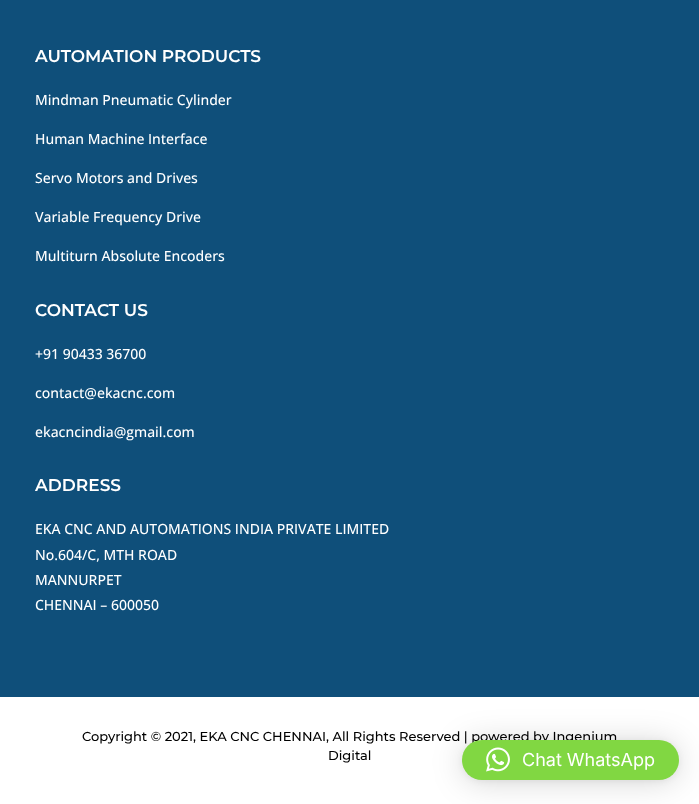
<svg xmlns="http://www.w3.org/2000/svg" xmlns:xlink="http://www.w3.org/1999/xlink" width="699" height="804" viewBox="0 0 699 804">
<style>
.cls-1{font:100 17px Montserrat;fill:#ffffff}
.cls-2{font:500 14px Open Sans;fill:#ffffff}
.cls-3{font:100 13px 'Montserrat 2';fill:#000000}
.cls-4{font:18px Inter;fill:#ffffff}
</style>
<rect width="100%" height="100%" fill="#ffffff"/>
<rect fill="#0f4f7a" x="0" y="0" width="699" height="697"/>
<rect fill="#000000" fill-opacity="0.16" filter="blur(16px)" x="462" y="742" width="217" height="40" rx="20"/>
<rect fill="#000000" fill-opacity="0.06" filter="blur(3px)" x="462" y="741" width="217" height="40" rx="20"/>
<text class="cls-1" x="35" y="62">AUTOMATION PRODUCTS</text>
<text class="cls-2" x="35" y="105">Mindman Pneumatic Cylinder</text>
<text class="cls-2" x="35" y="144">Human Machine Interface</text>
<text class="cls-2" x="35" y="183">Servo Motors and Drives</text>
<text class="cls-2" x="35" y="222">Variable Frequency Drive</text>
<text class="cls-2" x="35" y="261">Multiturn Absolute Encoders</text>
<text class="cls-1" x="35" y="316">CONTACT US</text>
<text class="cls-2" x="35" y="359">+91 90433 36700</text>
<text class="cls-2" x="35" y="398">contact@ekacnc.com</text>
<text class="cls-2" x="35" y="437">ekacncindia@gmail.com</text>
<text class="cls-1" x="35" y="491">ADDRESS</text>
<text class="cls-2"><tspan x="35" y="534">EKA CNC AND AUTOMATIONS INDIA PRIVATE LIMITED</tspan><tspan x="35" y="560">No.604/C, MTH ROAD</tspan><tspan x="35" y="585">MANNURPET</tspan><tspan x="35" y="610">CHENNAI – 600050</tspan></text>
<text class="cls-3" x="82" y="741">Copyright © 2021, EKA CNC CHENNAI, All Rights Reserved | powered by Ingenium</text>
<text class="cls-3" x="328" y="760">Digital</text>
<rect fill="#81d742" x="462" y="740" width="217" height="40" rx="20"/>
<image xlink:href="image0.png" x="486" y="747" width="24" height="25"/>
<text class="cls-4" x="522" y="766">Chat WhatsApp</text>
</svg>
